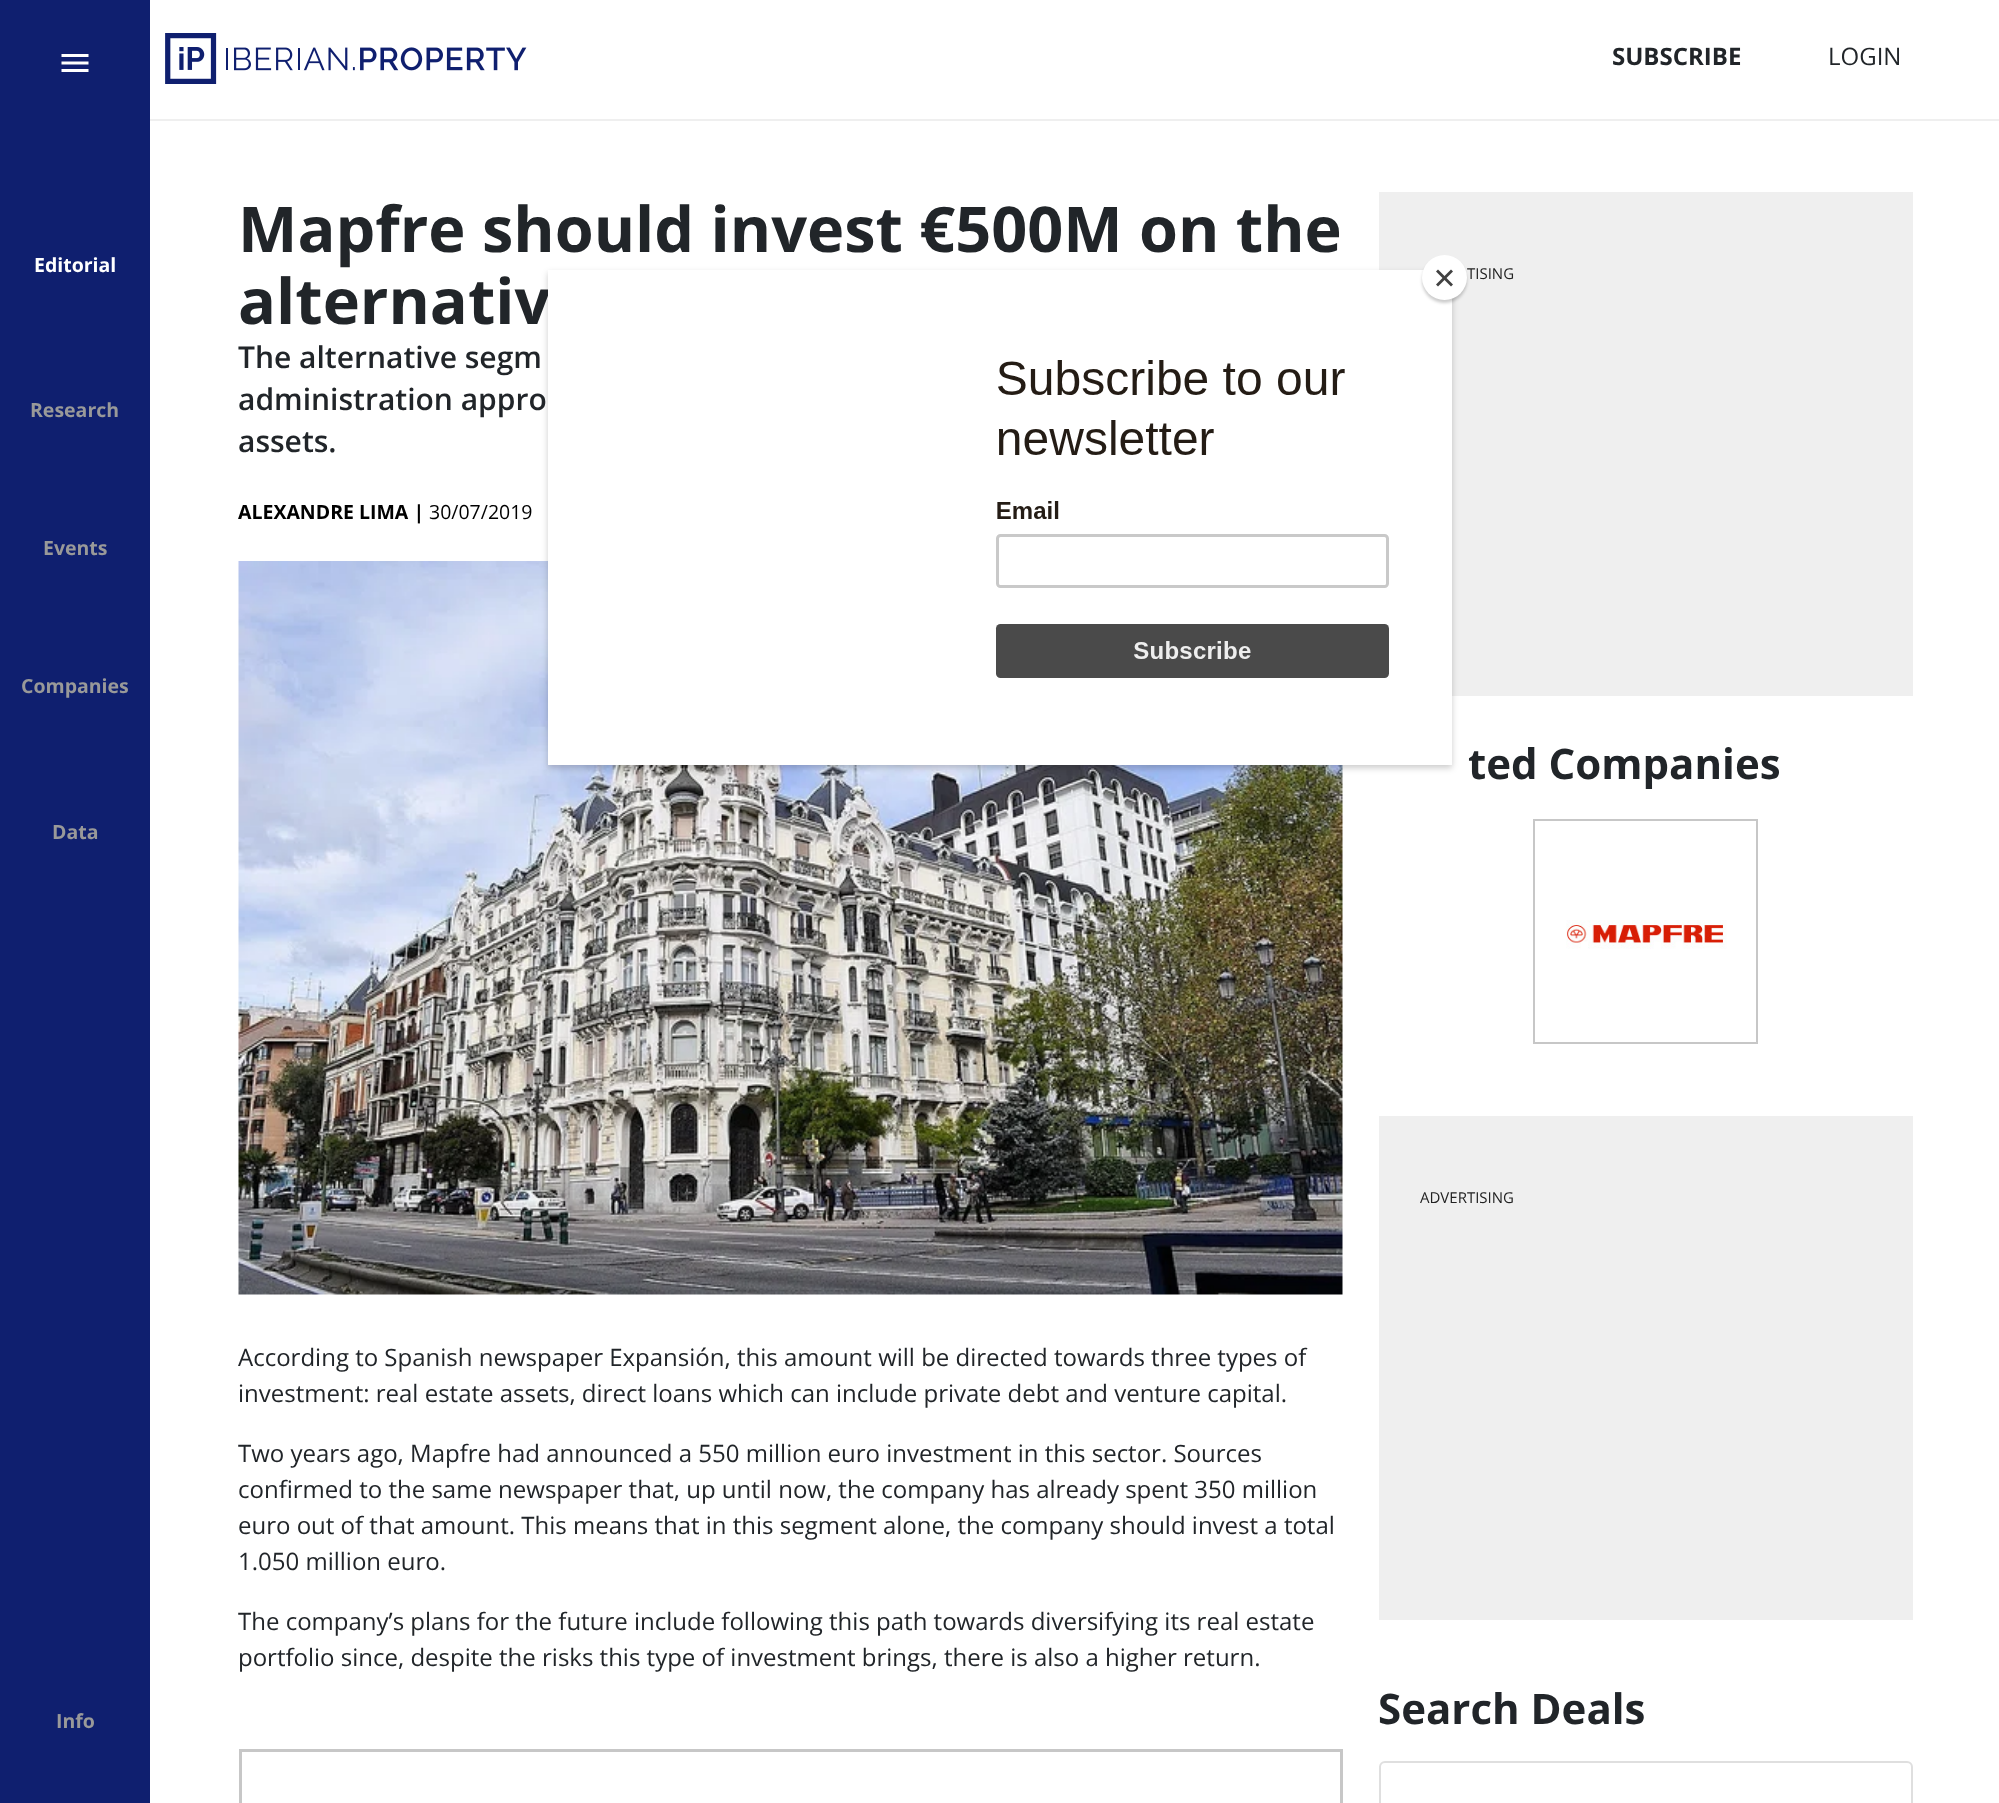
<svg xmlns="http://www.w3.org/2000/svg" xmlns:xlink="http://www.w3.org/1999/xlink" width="1999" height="1803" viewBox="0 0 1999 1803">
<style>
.cls-1{font:bold 19.5px Open Sans;fill:#ffffff}
.cls-2{font:bold 19.5px Open Sans;fill:#999999}
.cls-3{font:bold 24px Open Sans;fill:#212529}
.cls-4{font:24px Open Sans;fill:#212529}
.cls-5{font:bold 63px Open Sans;fill:#212529}
.cls-6{font:600 30px Open Sans;fill:#212529}
.cls-7{font:bold 19.5px Open Sans;fill:#000000}
.cls-8{font:19.5px Open Sans;fill:#000000}
.cls-9{font:15px Open Sans;fill:#222222}
.cls-10{font:bold 42px Open Sans;fill:#212529}
</style>
<rect width="100%" height="100%" fill="#ffffff"/>
<rect fill="#0f1f6f" x="0" y="0" width="150" height="1803"/>
<image xlink:href="image0.png" x="61" y="54" width="28" height="18"/>
<rect fill="#efefef" x="150" y="119" width="1849" height="2"/>
<image xlink:href="image1.png" x="165" y="33" width="362" height="51"/>
<image xlink:href="image2.png" x="238" y="561" width="1105" height="734"/>
<rect fill="none" stroke="#c7c7c7" stroke-width="3" x="240.5" y="1750.5" width="1101" height="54"/>
<rect fill="#efefef" x="1379" y="192" width="534" height="504"/>
<rect fill="none" stroke="#c7c7c7" stroke-width="2" x="1534" y="820" width="223" height="223"/>
<image xlink:href="image3.png" x="1566" y="920" width="161" height="29"/>
<rect fill="#efefef" x="1379" y="1116" width="534" height="504"/>
<rect fill="none" stroke="#dfdfdf" stroke-width="2" x="1380" y="1762" width="532" height="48" rx="5"/>
<rect fill="#000000" fill-opacity="0.2" filter="blur(3px)" x="548" y="273" width="904" height="495"/>
<text class="cls-1" x="34" y="272">Editorial</text>
<text class="cls-2" x="30" y="417">Research</text>
<text class="cls-2" x="43" y="555">Events</text>
<text class="cls-2" x="21" y="693">Companies</text>
<text class="cls-2" x="52" y="839">Data</text>
<text class="cls-2" x="56" y="1728">Info</text>
<text class="cls-3" x="1612" y="65">SUBSCRIBE</text>
<text class="cls-4" x="1828" y="65">LOGIN</text>
<text class="cls-5"><tspan x="238" y="252">Mapfre should invest €500M on the</tspan><tspan x="238" y="324">alternativ</tspan></text>
<text class="cls-6"><tspan x="238" y="368">The alternative segm</tspan><tspan x="238" y="410">administration appro</tspan><tspan x="238" y="452">assets.</tspan></text>
<text class="cls-7" x="238" y="519">ALEXANDRE LIMA |</text>
<text class="cls-8" x="429" y="519">30/07/2019</text>
<text class="cls-4"><tspan x="238" y="1366">According to Spanish newspaper Expansión, this amount will be directed towards three types of</tspan><tspan x="238" y="1402">investment: real estate assets, direct loans which can include private debt and venture capital.</tspan></text>
<text class="cls-4"><tspan x="238" y="1462">Two years ago, Mapfre had announced a 550 million euro investment in this sector. Sources</tspan><tspan x="238" y="1498">confirmed to the same newspaper that, up until now, the company has already spent 350 million</tspan><tspan x="238" y="1534">euro out of that amount. This means that in this segment alone, the company should invest a total</tspan><tspan x="238" y="1570">1.050 million euro.</tspan></text>
<text class="cls-4"><tspan x="238" y="1630">The company’s plans for the future include following this path towards diversifying its real estate</tspan><tspan x="238" y="1666">portfolio since, despite the risks this type of investment brings, there is also a higher return.</tspan></text>
<text class="cls-9" x="1467" y="279">TISING</text>
<text class="cls-10" x="1468" y="779">ted Companies</text>
<text class="cls-9" x="1420" y="1203">ADVERTISING</text>
<text class="cls-10" x="1378" y="1724">Search Deals</text>
<image xlink:href="image4.png" x="548" y="270" width="904" height="495"/>
<rect fill="#000000" fill-opacity="0.2" filter="blur(1.5px)" x="1422" y="258" width="45" height="45" rx="22.5"/>
<circle fill="#ffffff" cx="1444.5" cy="277.5" r="22.5"/>
<path fill="#414141" d="M1451 269.5L1453 271.5L1438 286.5L1436 284.5Z"/>
<path fill="#414141" d="M1436 271.5L1438 269.5L1453 284.5L1451 286.5Z"/>
</svg>
